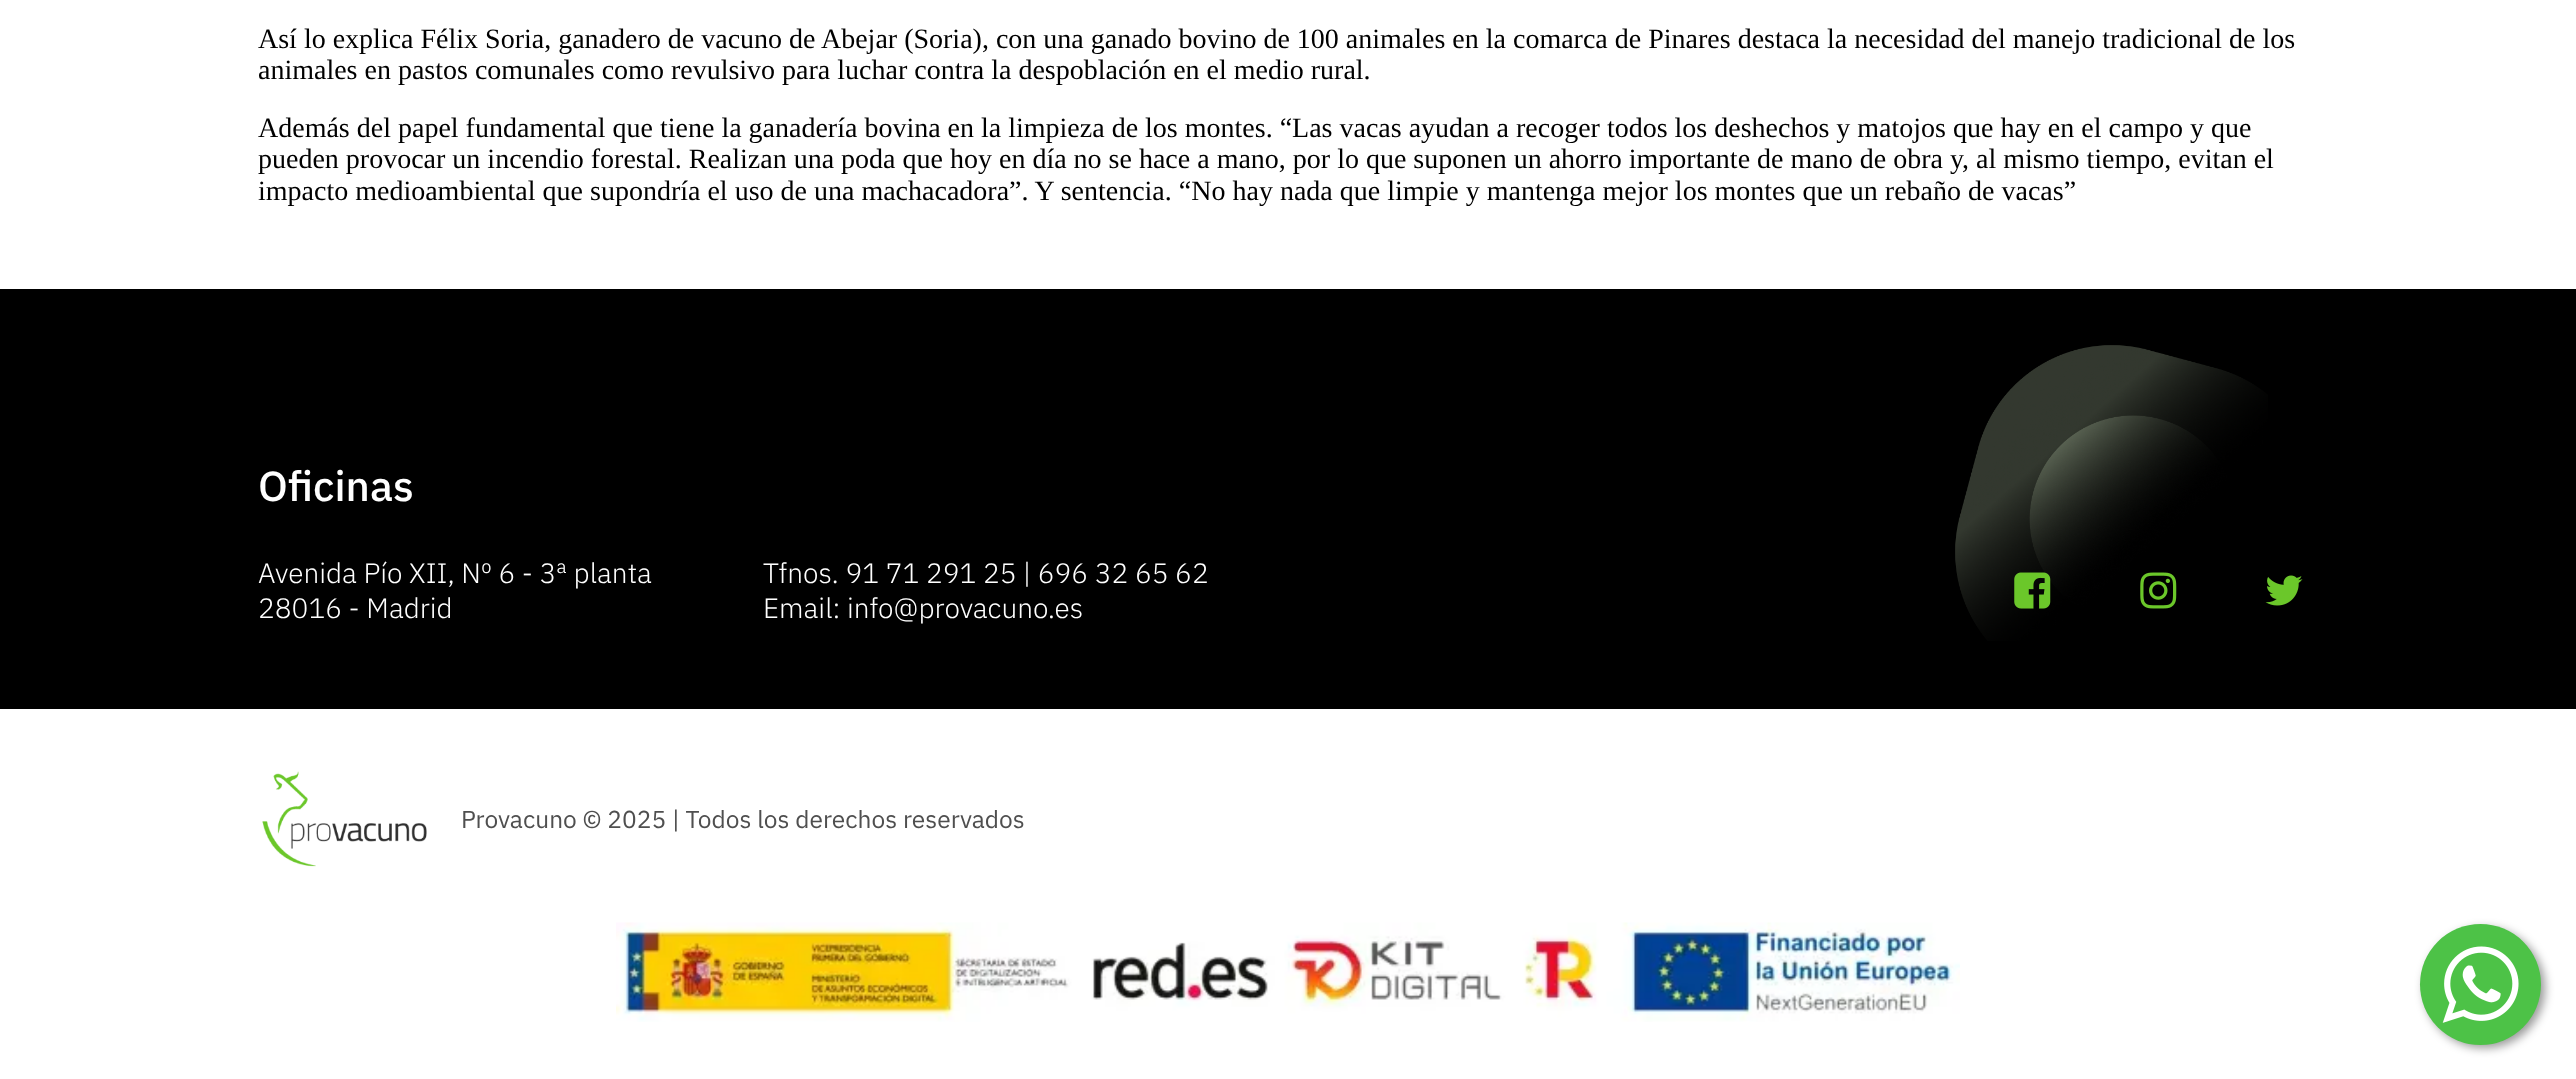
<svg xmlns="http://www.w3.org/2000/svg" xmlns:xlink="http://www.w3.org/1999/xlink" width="2576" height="1079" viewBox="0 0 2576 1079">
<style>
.cls-1{font:28px Liberation Serif;fill:#000000}
.cls-2{font:500 42px IBM Plex Sans;fill:#ffffff}
.cls-3{font:300 28px IBM Plex Sans;fill:#ffffff}
.cls-4{font:24.5px IBM Plex Sans;fill:#4f4f4f}
</style>
<rect width="100%" height="100%" fill="#ffffff"/>
<rect fill="#000000" x="0" y="289" width="2576" height="420"/>
<image xlink:href="image0.png" x="1955" y="345" width="313" height="296"/>
<image xlink:href="image1.png" x="2014" y="572" width="37" height="37"/>
<image xlink:href="image2.png" x="2140" y="572" width="37" height="37"/>
<image xlink:href="image3.png" x="2265" y="575" width="38" height="31"/>
<image xlink:href="image4.png" x="262" y="771" width="165" height="96"/>
<image xlink:href="image5.png" x="616" y="922" width="1344" height="100"/>
<rect fill="#000000" fill-opacity="0.4" filter="blur(5px)" x="2424" y="928" width="121" height="120" rx="60"/>
<circle fill="#4dc247" cx="2480.5" cy="984.5" r="60.5"/>
<image xlink:href="image6.png" x="2442" y="946" width="77" height="77"/>
<text class="cls-1"><tspan x="258" y="48">Así lo explica Félix Soria, ganadero de vacuno de Abejar (Soria), con una ganado bovino de 100 animales en la comarca de Pinares destaca la necesidad del manejo tradicional de los</tspan><tspan x="258" y="79">animales en pastos comunales como revulsivo para luchar contra la despoblación en el medio rural.</tspan></text>
<text class="cls-1"><tspan x="258" y="137">Además del papel fundamental que tiene la ganadería bovina en la limpieza de los montes. “Las vacas ayudan a recoger todos los deshechos y matojos que hay en el campo y que</tspan><tspan x="258" y="168">pueden provocar un incendio forestal. Realizan una poda que hoy en día no se hace a mano, por lo que suponen un ahorro importante de mano de obra y, al mismo tiempo, evitan el</tspan><tspan x="258" y="200">impacto medioambiental que supondría el uso de una machacadora”. Y sentencia. “No hay nada que limpie y mantenga mejor los montes que un rebaño de vacas”</tspan></text>
<text class="cls-2" x="258" y="501">Oficinas</text>
<text class="cls-3"><tspan x="258" y="583">Avenida Pío XII, Nº 6 - 3ª planta</tspan><tspan x="258" y="618">28016 - Madrid</tspan></text>
<text class="cls-3"><tspan x="763" y="583">Tfnos. 91 71 291 25 | 696 32 65 62</tspan><tspan x="763" y="618">Email: info@provacuno.es</tspan></text>
<text class="cls-4" x="461" y="828">Provacuno © 2025 | Todos los derechos reservados</text>
</svg>
